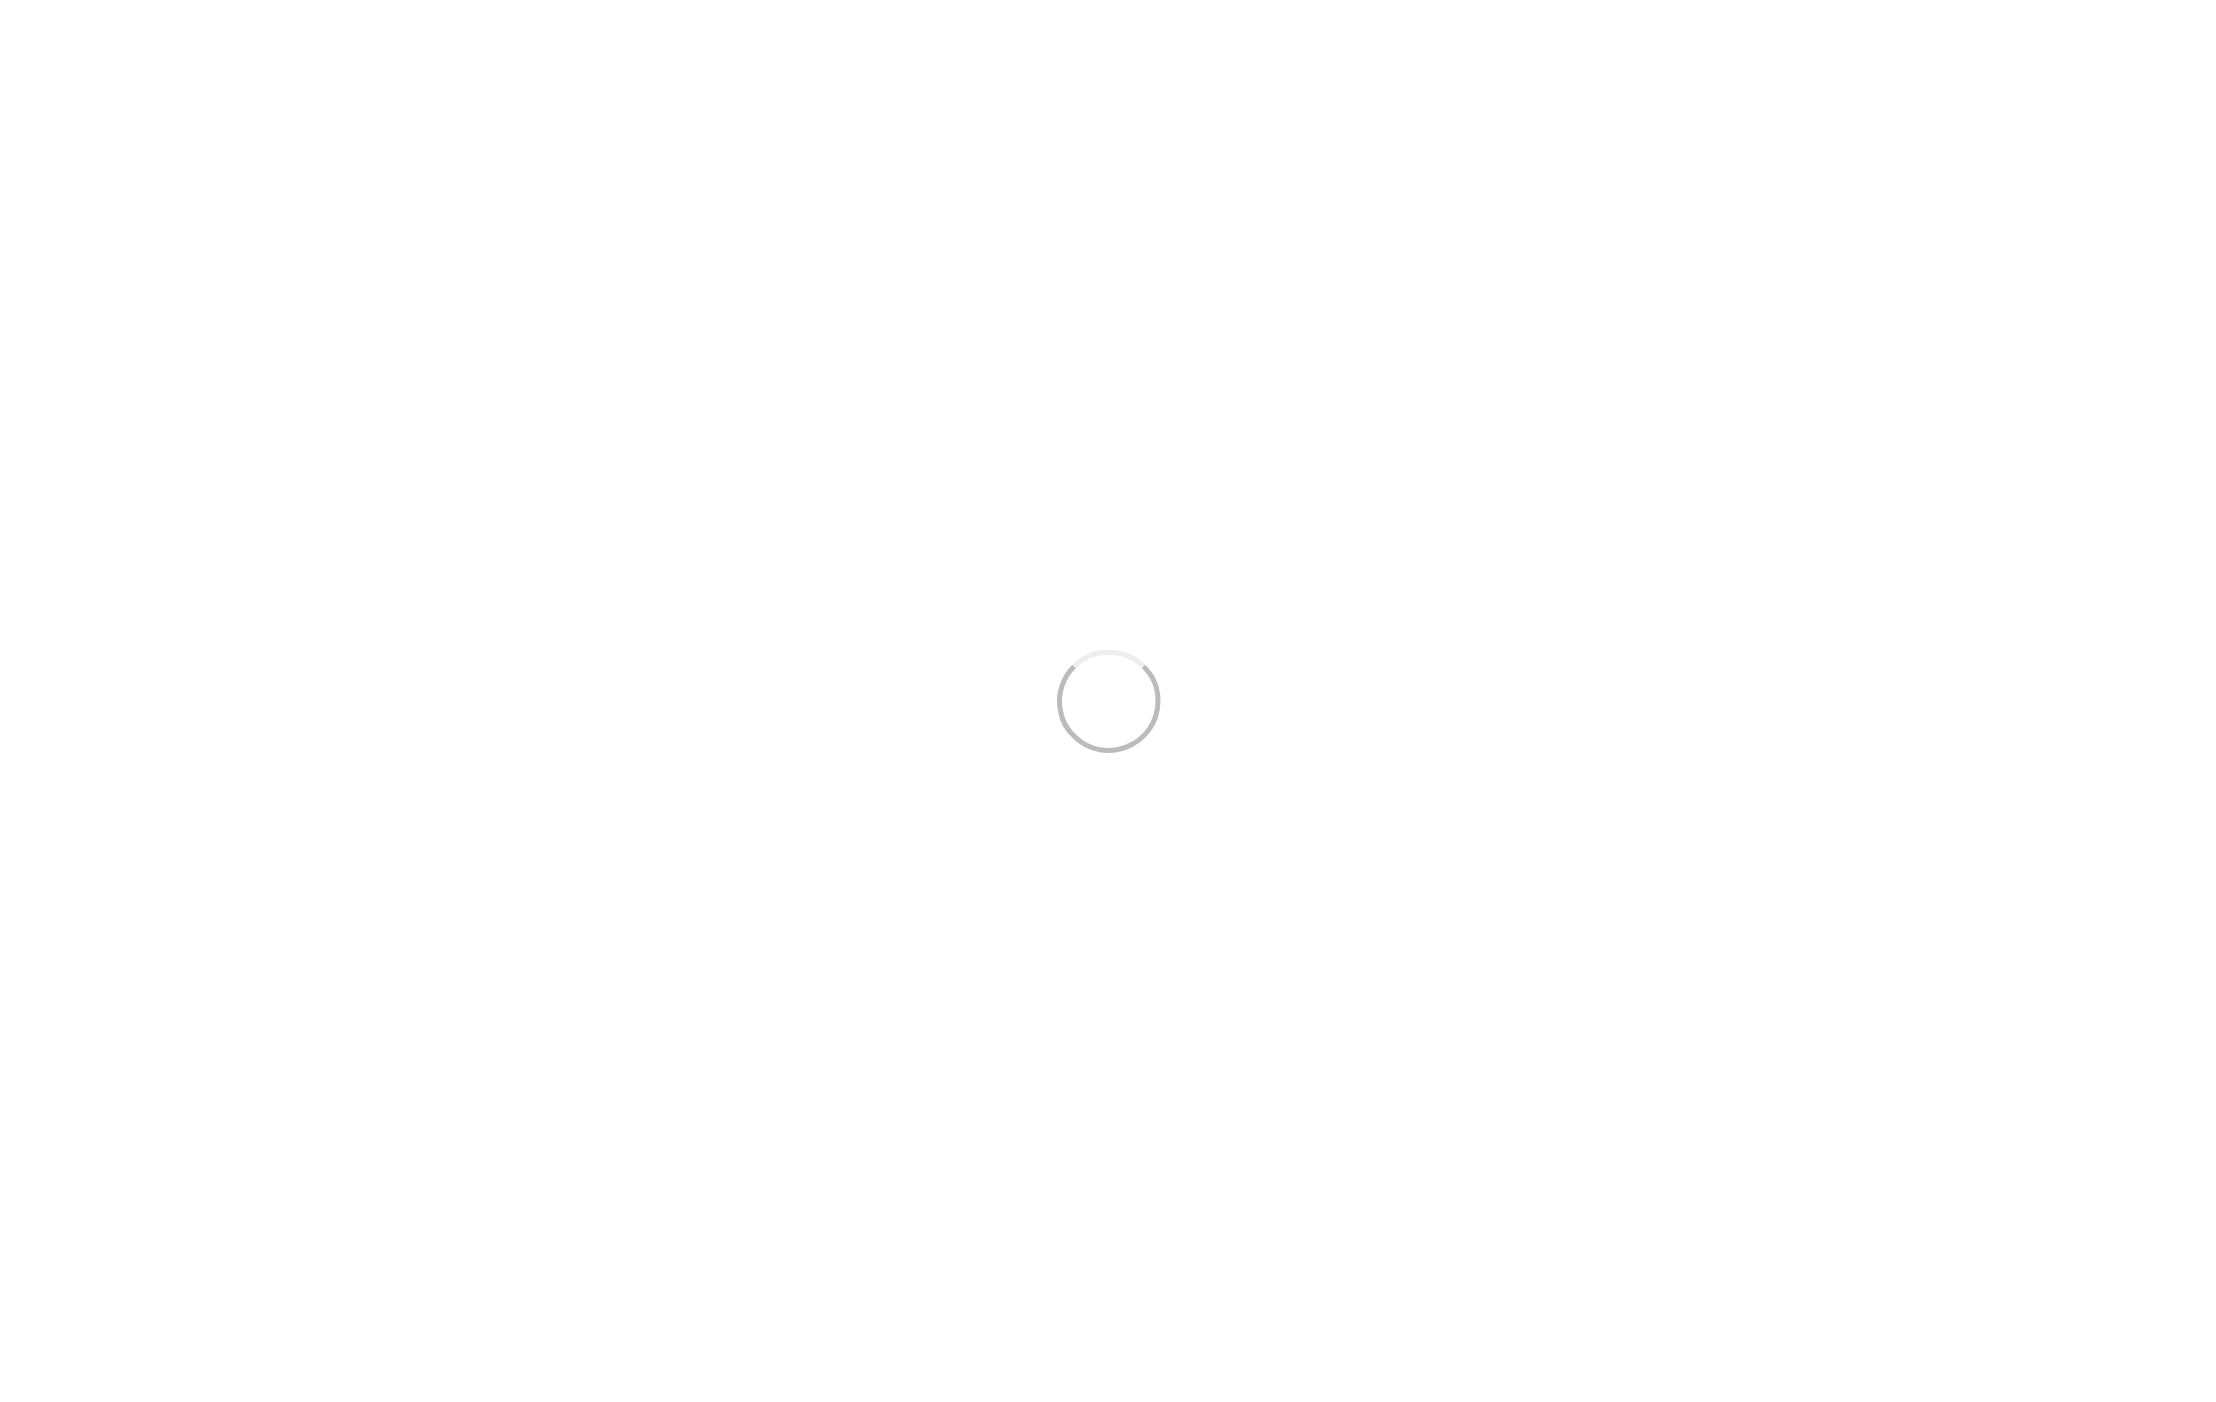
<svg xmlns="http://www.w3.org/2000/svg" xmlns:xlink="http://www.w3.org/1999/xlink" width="2216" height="1402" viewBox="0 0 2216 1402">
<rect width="100%" height="100%" fill="#ffffff"/>
<path fill="none" stroke="#eeeeee" stroke-width="5" d="M1074 666.5C1093 647.5 1124.5 647.5 1143.5 666.5"/>
<path fill="none" stroke="#bbbbbb" stroke-width="5" d="M1143.5 666.5C1153 675.5 1158 688 1158 701C1158 745 1104.5 767 1074 736C1067 729.5 1062 720.5 1060.5 711C1057 695 1062.5 678 1074 666.5"/>
</svg>
